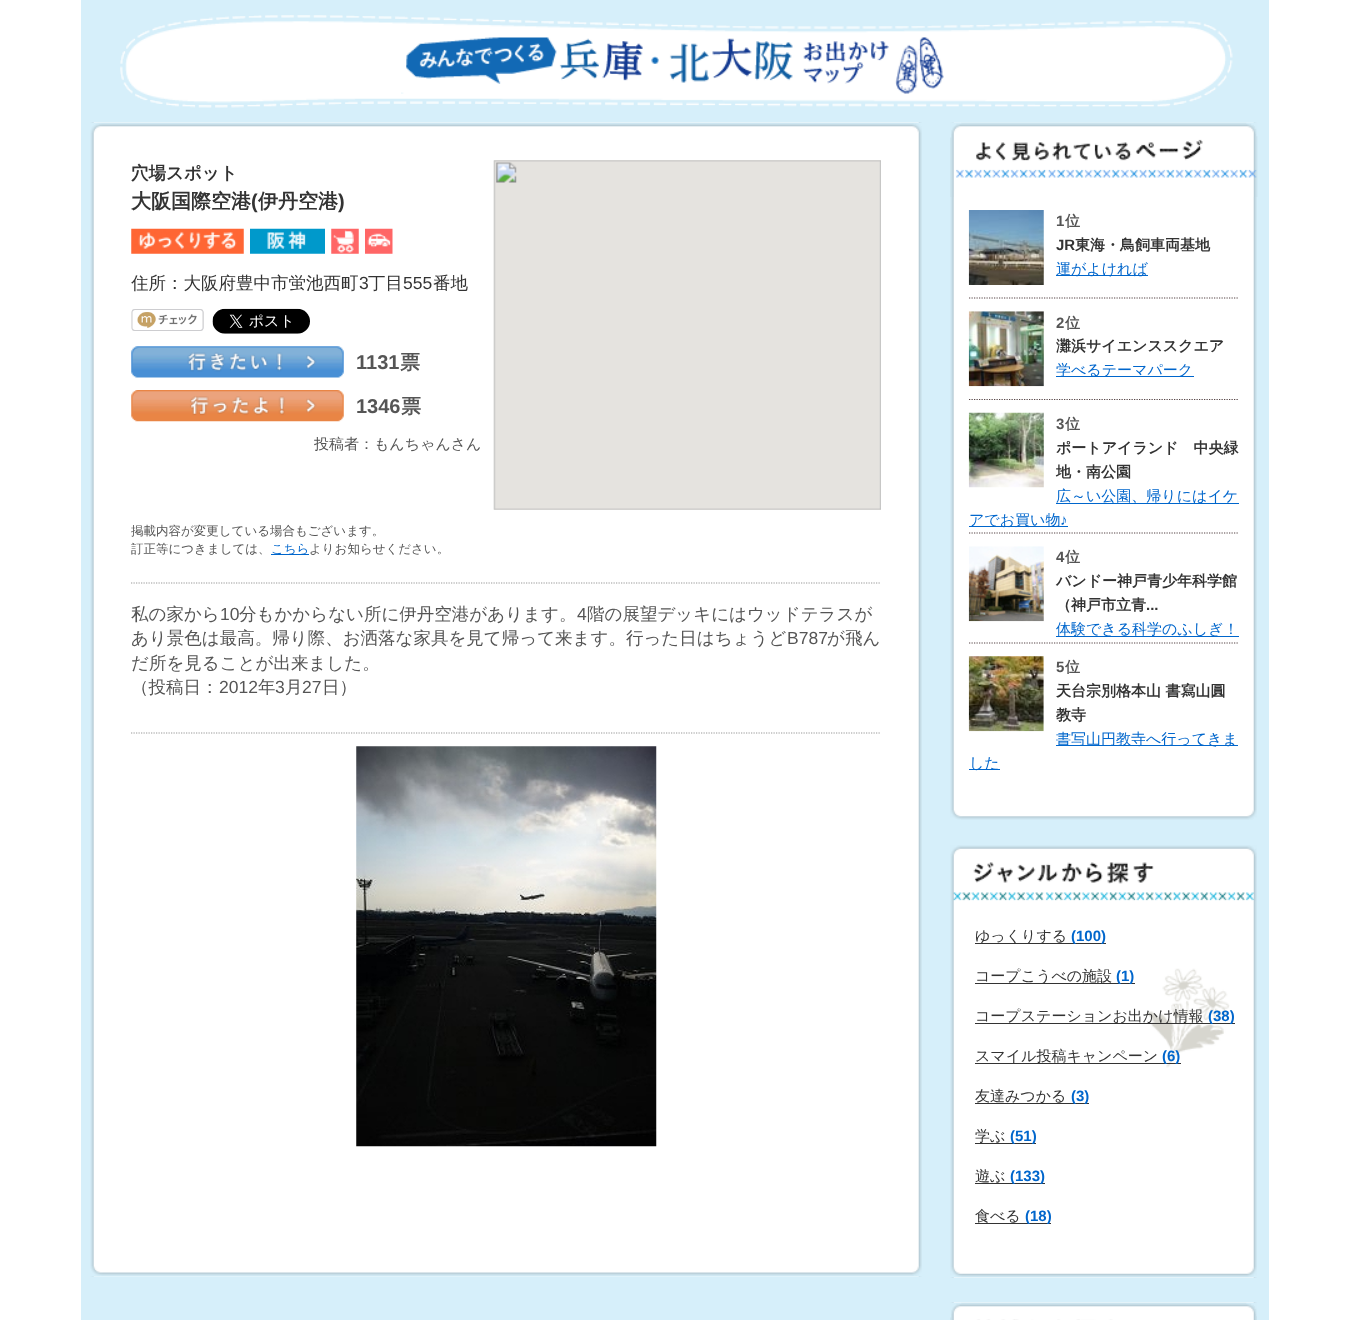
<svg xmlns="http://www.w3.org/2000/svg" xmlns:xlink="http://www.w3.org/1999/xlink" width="1349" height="1320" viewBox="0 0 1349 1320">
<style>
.cls-1{font:bold 17.5px WenQuanYi Zen Hei;fill:#333333}
.cls-2{font:bold 20px WenQuanYi Zen Hei;fill:#333333}
.cls-3{font:bold 20px Liberation Sans;fill:#333333}
.cls-4{font:500 17.5px WenQuanYi Zen Hei;fill:#333333}
.cls-5{font:17.5px Liberation Sans;fill:#333333}
.cls-6{font:bold 20px Liberation Sans;fill:#555555}
.cls-7{font:bold 20px WenQuanYi Zen Hei;fill:#555555}
.cls-8{font:500 15px WenQuanYi Zen Hei;fill:#555555}
.cls-9{font:500 12.5px WenQuanYi Zen Hei;fill:#555555}
.cls-10{font:500 12.5px WenQuanYi Zen Hei;fill:#0066cc}
.cls-11{font:500 17.5px WenQuanYi Zen Hei;fill:#555555}
.cls-12{font:17.5px Liberation Sans;fill:#555555}
.cls-13{font:bold 15px Liberation Sans;fill:#555555}
.cls-14{font:bold 15px WenQuanYi Zen Hei;fill:#555555}
.cls-15{font:bold 15px Liberation Sans;fill:#333333}
.cls-16{font:bold 15px WenQuanYi Zen Hei;fill:#333333}
.cls-17{font:500 15px WenQuanYi Zen Hei;fill:#0066cc}
.cls-18{font:15px Liberation Sans;fill:#0066cc}
.cls-19{font:500 15px WenQuanYi Zen Hei;fill:#333333}
.cls-20{font:bold 15px Liberation Sans;fill:#0066cc}
</style>
<rect width="100%" height="100%" fill="#ffffff"/>
<rect fill="#d6effa" x="81" y="0" width="1188" height="1320"/>
<image xlink:href="image0.png" x="120" y="15" width="1113" height="93"/>
<image xlink:href="image1.png" x="401" y="37" width="543" height="57"/>
<image xlink:href="image2.png" x="90" y="122" width="832" height="1155"/>
<image xlink:href="image3.png" x="90" y="1266" width="832" height="10"/>
<image xlink:href="image4.png" x="90" y="122" width="832" height="11"/>
<image xlink:href="image5.png" x="131" y="228" width="113" height="26"/>
<image xlink:href="image6.png" x="250" y="228" width="75" height="26"/>
<image xlink:href="image7.png" x="331" y="228" width="28" height="26"/>
<image xlink:href="image8.png" x="365" y="228" width="28" height="26"/>
<image xlink:href="image9.png" x="131" y="309" width="73" height="22"/>
<image xlink:href="image10.png" x="212" y="308" width="98" height="26"/>
<image xlink:href="image11.png" x="131" y="346" width="213" height="32"/>
<image xlink:href="image12.png" x="131" y="390" width="213" height="32"/>
<image xlink:href="image13.png" x="493" y="160" width="388" height="350"/>
<rect fill="#0066cc" x="271" y="554" width="38" height="1"/>
<path fill="none" stroke="#999999" stroke-width="1.2" stroke-dasharray="1.25 1.25" d="M131 583H881"/>
<path fill="none" stroke="#999999" stroke-width="1.2" stroke-dasharray="1.25 1.25" d="M131 733H881"/>
<image xlink:href="image14.png" x="356" y="746" width="301" height="401"/>
<image xlink:href="image15.png" x="950" y="122" width="307" height="688"/>
<image xlink:href="image16.png" x="950" y="122" width="308" height="75"/>
<image xlink:href="image17.png" x="968" y="210" width="76" height="75"/>
<rect fill="#0066cc" x="1056" y="275" width="92" height="1"/>
<path fill="none" stroke="#564546" stroke-width="1.2" stroke-dasharray="1.25 1.25" d="M969 298H1239"/>
<image xlink:href="image18.png" x="968" y="311" width="76" height="76"/>
<rect fill="#0066cc" x="1056" y="376" width="138" height="1"/>
<path fill="none" stroke="#564546" stroke-width="1.2" stroke-dasharray="1.25 1.25" d="M969 399.5H1239"/>
<image xlink:href="image19.png" x="968" y="412" width="76" height="76"/>
<rect fill="#0066cc" x="1056" y="503" width="183" height="1"/>
<rect fill="#0066cc" x="969" y="526" width="99" height="1"/>
<path fill="none" stroke="#564546" stroke-width="1.2" stroke-dasharray="1.25 1.25" d="M969 533H1239"/>
<image xlink:href="image20.png" x="968" y="546" width="76" height="76"/>
<rect fill="#0066cc" x="1056" y="636" width="183" height="1"/>
<path fill="none" stroke="#564546" stroke-width="1.2" stroke-dasharray="1.25 1.25" d="M969 643H1239"/>
<image xlink:href="image21.png" x="968" y="656" width="76" height="76"/>
<rect fill="#0066cc" x="1056" y="745" width="182" height="1"/>
<rect fill="#0066cc" x="969" y="769" width="31" height="1"/>
<image xlink:href="image22.png" x="950" y="810" width="307" height="10"/>
<image xlink:href="image23.png" x="950" y="901" width="307" height="377"/>
<image xlink:href="image24.png" x="950" y="845" width="307" height="56"/>
<image xlink:href="image25.png" x="1147" y="968" width="83" height="100"/>
<rect fill="#333333" x="975" y="943" width="131" height="1"/>
<rect fill="#333333" x="975" y="983" width="160" height="1"/>
<rect fill="#333333" x="975" y="1023" width="260" height="1"/>
<rect fill="#333333" x="975" y="1063" width="206" height="1"/>
<rect fill="#333333" x="975" y="1103" width="114" height="1"/>
<rect fill="#333333" x="975" y="1143" width="61" height="1"/>
<rect fill="#333333" x="975" y="1183" width="70" height="1"/>
<rect fill="#333333" x="975" y="1223" width="76" height="1"/>
<image xlink:href="image26.png" x="950" y="1267" width="307" height="11"/>
<image xlink:href="image27.png" x="950" y="1302" width="307" height="1"/>
<image xlink:href="image28.png" x="950" y="1302" width="307" height="18"/>
<text class="cls-1" x="131" y="179">穴場スポット</text>
<text class="cls-2" x="131" y="208">大阪国際空港</text>
<text class="cls-3" x="251" y="208">(</text>
<text class="cls-2" x="258" y="208">伊丹空港</text>
<text class="cls-3" x="338" y="208">)</text>
<text class="cls-4" x="131" y="289">住所：大阪府豊中市蛍池西町</text>
<text class="cls-5" x="359" y="289">3</text>
<text class="cls-4" x="368" y="289">丁目</text>
<text class="cls-5" x="403" y="289">555</text>
<text class="cls-4" x="433" y="289">番地</text>
<text class="cls-6" x="356" y="369">1131</text>
<text class="cls-7" x="400" y="369">票</text>
<text class="cls-6" x="356" y="413">1346</text>
<text class="cls-7" x="401" y="413">票</text>
<text class="cls-8" x="314" y="449">投稿者：もんちゃんさん</text>
<text class="cls-9"><tspan x="131" y="535">掲載内容が変更している場合もございます。</tspan><tspan x="131" y="553">訂正等につきましては、</tspan></text>
<text class="cls-10" x="271" y="553">こちら</text>
<text class="cls-9" x="309" y="553">よりお知らせください。</text>
<text class="cls-11" x="131" y="620">私の家から</text>
<text class="cls-12" x="220" y="620">10</text>
<text class="cls-11" x="239" y="620">分もかからない所に伊丹空港があります。</text>
<text class="cls-12" x="577" y="620">4</text>
<text class="cls-11" x="587" y="620">階の展望デッキにはウッドテラスが</text>
<text class="cls-11" x="131" y="644">あり景色は最高。帰り際、お洒落な家具を見て帰って来ます。行った日はちょうど</text>
<text class="cls-12" x="787" y="644">B787</text>
<text class="cls-11" x="827" y="644">が飛ん</text>
<text class="cls-11"><tspan x="131" y="669">だ所を見ることが出来ました。</tspan><tspan x="131" y="693">（投稿日：</tspan></text>
<text class="cls-12" x="219" y="693">2012</text>
<text class="cls-11" x="258" y="693">年</text>
<text class="cls-12" x="275" y="693">3</text>
<text class="cls-11" x="285" y="693">月</text>
<text class="cls-12" x="302" y="693">27</text>
<text class="cls-11" x="322" y="693">日）</text>
<text class="cls-13" x="1056" y="226">1</text>
<text class="cls-14" x="1065" y="226">位</text>
<text class="cls-15" x="1056" y="250">JR</text>
<text class="cls-16" x="1075" y="250">東海・鳥飼車両基地</text>
<text class="cls-17" x="1056" y="274">運がよければ</text>
<text class="cls-13" x="1056" y="328">2</text>
<text class="cls-14" x="1065" y="328">位</text>
<text class="cls-16" x="1056" y="351">灘浜サイエンススクエア</text>
<text class="cls-17" x="1056" y="375">学べるテーマパーク</text>
<text class="cls-13" x="1056" y="429">3</text>
<text class="cls-14" x="1065" y="429">位</text>
<text class="cls-16"><tspan x="1056" y="453">ポートアイランド　中央緑</tspan><tspan x="1056" y="477">地・南公園</tspan></text>
<text class="cls-17" x="1056" y="501">広～い公園、帰りにはイケ</text>
<text class="cls-17" x="969" y="525">アでお買い物</text>
<text class="cls-18" x="1060" y="525">♪</text>
<text class="cls-13" x="1056" y="562">4</text>
<text class="cls-14" x="1065" y="562">位</text>
<text class="cls-16"><tspan x="1056" y="586">バンドー神戸青少年科学館</tspan><tspan x="1056" y="610">（神戸市立青</tspan></text>
<text class="cls-15" x="1146" y="610">...</text>
<text class="cls-17" x="1056" y="634">体験できる科学のふしぎ！</text>
<text class="cls-13" x="1056" y="672">5</text>
<text class="cls-14" x="1065" y="672">位</text>
<text class="cls-16"><tspan x="1056" y="696">天台宗別格本山 書寫山圓</tspan><tspan x="1056" y="720">教寺</tspan></text>
<text class="cls-17" x="1056" y="744">書写山円教寺へ行ってきま</text>
<text class="cls-17" x="969" y="768">した</text>
<text class="cls-19" x="975" y="941">ゆっくりする</text>
<text class="cls-20" x="1071" y="941">(100)</text>
<text class="cls-19" x="975" y="981">コープこうべの施設</text>
<text class="cls-20" x="1116" y="981">(1)</text>
<text class="cls-19" x="975" y="1021">コープステーションお出かけ情報</text>
<text class="cls-20" x="1208" y="1021">(38)</text>
<text class="cls-19" x="975" y="1061">スマイル投稿キャンペーン</text>
<text class="cls-20" x="1162" y="1061">(6)</text>
<text class="cls-19" x="975" y="1101">友達みつかる</text>
<text class="cls-20" x="1071" y="1101">(3)</text>
<text class="cls-19" x="975" y="1141">学ぶ</text>
<text class="cls-20" x="1010" y="1141">(51)</text>
<text class="cls-19" x="975" y="1181">遊ぶ</text>
<text class="cls-20" x="1010" y="1181">(133)</text>
<text class="cls-19" x="975" y="1221">食べる</text>
<text class="cls-20" x="1025" y="1221">(18)</text>
</svg>
